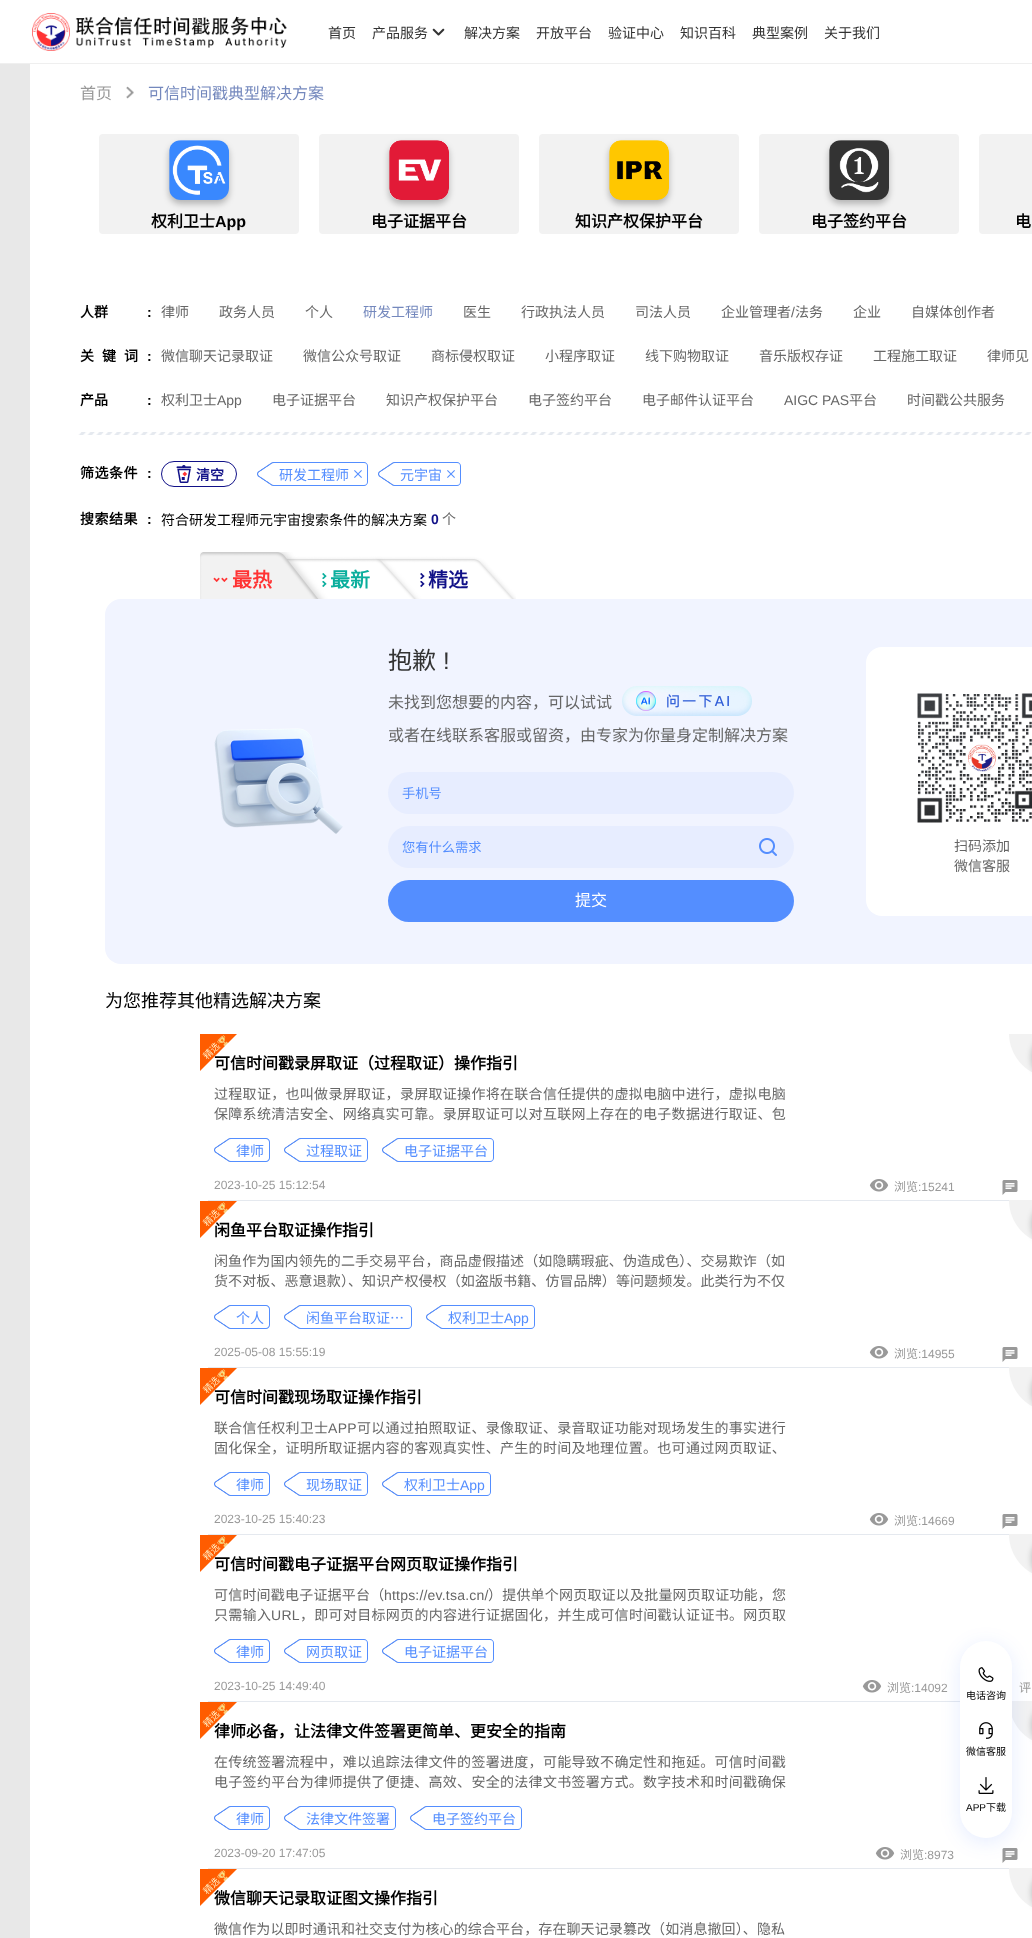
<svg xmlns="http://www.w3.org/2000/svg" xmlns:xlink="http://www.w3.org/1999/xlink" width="1032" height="1938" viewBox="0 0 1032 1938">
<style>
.cls-1{font:14px Noto Sans CJK SC;fill:#333333}
.cls-2{font:16px Noto Sans CJK SC;fill:#999999}
.cls-3{font:16px Noto Sans CJK SC;fill:#7488bd}
.cls-4{font:bold 16px Noto Sans CJK SC;fill:#000000}
.cls-5{font:bold 16px Liberation Sans;fill:#000000}
.cls-6{font:bold 14px Noto Sans CJK SC;fill:#000000}
.cls-7{font:bold 14px Liberation Sans;fill:#000000}
.cls-8{font:14px Noto Sans CJK SC;fill:#666666}
.cls-9{font:14px Noto Sans CJK SC;fill:#7488bd}
.cls-10{font:14px Liberation Sans;fill:#666666}
.cls-11{font:bold 14px Noto Sans CJK SC;letter-spacing:8px;fill:#000000}
.cls-12{font:bold 14px Noto Sans CJK SC;letter-spacing:0.5px;fill:#000000}
.cls-13{font:bold 14px Noto Sans CJK SC;fill:#111188}
.cls-14{font:14px Noto Sans CJK SC;fill:#548eff}
.cls-15{font:14px Noto Sans CJK SC;fill:#000000}
.cls-16{font:bold 14px Liberation Sans;fill:#111188}
.cls-17{font:bold 20px Noto Sans CJK SC;fill:#ff3333}
.cls-18{font:bold 20px Noto Sans CJK SC;fill:#0aae9d}
.cls-19{font:bold 20px Noto Sans CJK SC;fill:#111188}
.cls-20{font:24px Noto Sans CJK SC;fill:#333333}
.cls-21{font:24px Liberation Sans;fill:#333333}
.cls-22{font:16px Noto Sans CJK SC;fill:#666666}
.cls-23{font:13.25px Noto Sans CJK SC;fill:#548eff}
.cls-24{font:16px Noto Sans CJK SC;fill:#ffffff}
.cls-25{font:18px Noto Sans CJK SC;fill:#000000}
.cls-26{font:14px Noto Sans CJK SC;letter-spacing:0.3px;fill:#666666}
.cls-27{font:12px Liberation Sans;fill:#999999}
.cls-28{font:12px Noto Sans CJK SC;fill:#999999}
.cls-29{font:14px Noto Sans CJK SC;letter-spacing:0.1px;fill:#666666}
.cls-30{font:14px Liberation Sans;fill:#548eff}
.cls-31{font:14px Liberation Sans;letter-spacing:0.3px;fill:#666666}
.cls-32{font:14px Noto Sans CJK SC;letter-spacing:0.2px;fill:#666666}
.cls-33{font:14px Liberation Sans;letter-spacing:0.2px;fill:#666666}
.cls-34{font:10px Noto Sans CJK SC;fill:#000000}
.cls-35{font:10px Liberation Sans;fill:#000000}
</style>
<rect width="100%" height="100%" fill="#e8e8e8"/>
<rect fill="#ffffff" x="0" y="0" width="1032" height="63"/>
<image xlink:href="image0.png" x="32" y="13" width="255" height="38"/>
<image xlink:href="image1.png" x="432" y="28" width="13" height="8"/>
<rect fill="#efefef" x="0" y="63" width="1032" height="1"/>
<rect fill="#ffffff" x="30" y="64" width="1002" height="1874"/>
<image xlink:href="image2.png" x="126" y="86" width="8" height="13"/>
<rect fill="#f2f2f2" x="99" y="134" width="200" height="100" rx="4"/>
<rect fill="#000000" fill-opacity="0.25" filter="blur(3px)" x="169" y="144" width="60" height="60" rx="12"/>
<image xlink:href="image3.png" x="169" y="140" width="60" height="60"/>
<rect fill="#f2f2f2" x="319" y="134" width="200" height="100" rx="4"/>
<rect fill="#000000" fill-opacity="0.25" filter="blur(3px)" x="389" y="144" width="60" height="60" rx="12"/>
<image xlink:href="image4.png" x="389" y="140" width="60" height="60"/>
<rect fill="#f2f2f2" x="539" y="134" width="200" height="100" rx="4"/>
<rect fill="#000000" fill-opacity="0.25" filter="blur(3px)" x="609" y="144" width="60" height="60" rx="12"/>
<image xlink:href="image5.png" x="609" y="140" width="60" height="60"/>
<rect fill="#f2f2f2" x="759" y="134" width="200" height="100" rx="4"/>
<rect fill="#000000" fill-opacity="0.25" filter="blur(3px)" x="829" y="144" width="60" height="60" rx="12"/>
<image xlink:href="image6.png" x="829" y="140" width="60" height="60"/>
<rect fill="#f2f2f2" x="979" y="134" width="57" height="100" rx="4"/>
<image xlink:href="image7.png" x="78" y="432" width="954" height="3"/>
<rect fill="none" stroke="#111188" x="161.5" y="461.5" width="75" height="25" rx="12.5"/>
<image xlink:href="image8.png" x="176" y="465" width="16" height="18"/>
<image xlink:href="image9.png" x="257" y="462" width="22" height="24"/>
<path fill="#548eff" fill-rule="evenodd" d="M279 462H364C366 462 368 464 368 466V482C368 484 366 486 364 486H279ZM279 463H364C366 463 367 464 367 466V482C367 484 366 485 364 485H279Z"/>
<image xlink:href="image10.png" x="354" y="470" width="8" height="8"/>
<image xlink:href="image11.png" x="378" y="462" width="22" height="24"/>
<path fill="#548eff" fill-rule="evenodd" d="M400 462H457C459 462 461 464 461 466V482C461 484 459 486 457 486H400ZM400 463H457C459 463 460 464 460 466V482C460 484 459 485 457 485H400Z"/>
<image xlink:href="image10.png" x="447" y="470" width="8" height="8"/>
<image xlink:href="image12.png" x="200" y="552" width="316" height="47"/>
<image xlink:href="image13.png" x="213" y="577" width="15" height="5"/>
<image xlink:href="image14.png" x="322" y="573" width="5" height="14"/>
<image xlink:href="image15.png" x="420" y="573" width="5" height="14"/>
<rect fill="#f1f4ff" x="105" y="599" width="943" height="365" rx="16"/>
<image xlink:href="image16.png" x="214" y="728" width="129" height="106"/>
<image xlink:href="image17.png" x="622" y="686" width="130" height="30"/>
<rect fill="#e7edff" x="388" y="772" width="406" height="42" rx="21"/>
<rect fill="#e7edff" x="388" y="826" width="406" height="42" rx="21"/>
<image xlink:href="image18.png" x="759" y="838" width="18" height="18"/>
<rect fill="#548eff" x="388" y="880" width="406" height="42" rx="21"/>
<rect fill="#ffffff" x="866" y="647" width="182" height="269" rx="16"/>
<image xlink:href="image19.png" x="917" y="693" width="115" height="130"/>
<image xlink:href="image20.png" x="200" y="1034" width="37" height="37"/>
<image xlink:href="image11.png" x="214" y="1138" width="22" height="24"/>
<path fill="#548eff" fill-rule="evenodd" d="M236 1138H266C268 1138 270 1140 270 1142V1158C270 1160 268 1162 266 1162H236ZM236 1139H266C267.5 1139 269 1140.5 269 1142V1158C269 1159.5 267.5 1161 266 1161H236Z"/>
<image xlink:href="image9.png" x="284" y="1138" width="22" height="24"/>
<path fill="#548eff" fill-rule="evenodd" d="M306 1138H364C366 1138 368 1140 368 1142V1158C368 1160 366 1162 364 1162H306ZM306 1139H364C366 1139 367 1140 367 1142V1158C367 1160 366 1161 364 1161H306Z"/>
<image xlink:href="image11.png" x="382" y="1138" width="22" height="24"/>
<path fill="#548eff" fill-rule="evenodd" d="M404 1138H490C492 1138 494 1140 494 1142V1158C494 1160 492 1162 490 1162H404ZM404 1139H490C492 1139 493 1140 493 1142V1158C493 1160 492 1161 490 1161H404Z"/>
<image xlink:href="image21.png" x="1009" y="1034" width="23" height="38"/>
<rect fill="#000000" fill-opacity="0.25" filter="blur(3px)" x="1032" y="1038" width="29" height="39" rx="19.5"/>
<image xlink:href="image22.png" x="869" y="1179" width="20" height="13"/>
<image xlink:href="image23.png" x="1002" y="1180" width="16" height="15"/>
<rect fill="#e5e9ef" x="208" y="1200" width="801" height="1"/>
<image xlink:href="image20.png" x="200" y="1201" width="37" height="37"/>
<image xlink:href="image11.png" x="214" y="1305" width="22" height="24"/>
<path fill="#548eff" fill-rule="evenodd" d="M236 1305H266C268 1305 270 1307 270 1309V1325C270 1327 268 1329 266 1329H236ZM236 1306H266C267.5 1306 269 1307.5 269 1309V1325C269 1326.5 267.5 1328 266 1328H236Z"/>
<image xlink:href="image9.png" x="284" y="1305" width="22" height="24"/>
<path fill="#548eff" fill-rule="evenodd" d="M306 1305H408C410 1305 412 1307 412 1309V1325C412 1327 410 1329 408 1329H306ZM306 1306H408C410 1306 411 1307 411 1309V1325C411 1327 410 1328 408 1328H306Z"/>
<image xlink:href="image11.png" x="426" y="1305" width="22" height="24"/>
<path fill="#548eff" fill-rule="evenodd" d="M448 1305H531C533 1305 535 1307 535 1309V1325C535 1327 533 1329 531 1329H448ZM448 1306H531C533 1306 534 1307 534 1309V1325C534 1327 533 1328 531 1328H448Z"/>
<image xlink:href="image24.png" x="1009" y="1200" width="23" height="39"/>
<rect fill="#000000" fill-opacity="0.25" filter="blur(3px)" x="1032" y="1205" width="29" height="39" rx="19.5"/>
<image xlink:href="image22.png" x="869" y="1346" width="20" height="13"/>
<image xlink:href="image23.png" x="1002" y="1347" width="16" height="15"/>
<rect fill="#e5e9ef" x="208" y="1367" width="801" height="1"/>
<image xlink:href="image20.png" x="200" y="1368" width="37" height="37"/>
<image xlink:href="image11.png" x="214" y="1472" width="22" height="24"/>
<path fill="#548eff" fill-rule="evenodd" d="M236 1472H266C268 1472 270 1474 270 1476V1492C270 1494 268 1496 266 1496H236ZM236 1473H266C267.5 1473 269 1474.5 269 1476V1492C269 1493.5 267.5 1495 266 1495H236Z"/>
<image xlink:href="image9.png" x="284" y="1472" width="22" height="24"/>
<path fill="#548eff" fill-rule="evenodd" d="M306 1472H364C366 1472 368 1474 368 1476V1492C368 1494 366 1496 364 1496H306ZM306 1473H364C366 1473 367 1474 367 1476V1492C367 1494 366 1495 364 1495H306Z"/>
<image xlink:href="image11.png" x="382" y="1472" width="22" height="24"/>
<path fill="#548eff" fill-rule="evenodd" d="M404 1472H487C489 1472 491 1474 491 1476V1492C491 1494 489 1496 487 1496H404ZM404 1473H487C489 1473 490 1474 490 1476V1492C490 1494 489 1495 487 1495H404Z"/>
<image xlink:href="image24.png" x="1009" y="1367" width="23" height="39"/>
<rect fill="#000000" fill-opacity="0.25" filter="blur(3px)" x="1032" y="1372" width="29" height="39" rx="19.5"/>
<image xlink:href="image22.png" x="869" y="1513" width="20" height="13"/>
<image xlink:href="image23.png" x="1002" y="1514" width="16" height="15"/>
<rect fill="#e5e9ef" x="208" y="1534" width="801" height="1"/>
<image xlink:href="image20.png" x="200" y="1535" width="37" height="37"/>
<image xlink:href="image25.png" x="214" y="1639" width="22" height="24"/>
<path fill="#548eff" fill-rule="evenodd" d="M236 1639H266C268 1639 270 1641 270 1643V1659C270 1661 268 1663 266 1663H236ZM236 1640H266C267.5 1640 269 1641.5 269 1643V1659C269 1660.5 267.5 1662 266 1662H236Z"/>
<image xlink:href="image26.png" x="284" y="1639" width="22" height="24"/>
<path fill="#548eff" fill-rule="evenodd" d="M306 1639H364C366 1639 368 1641 368 1643V1659C368 1661 366 1663 364 1663H306ZM306 1640H364C366 1640 367 1641 367 1643V1659C367 1661 366 1662 364 1662H306Z"/>
<image xlink:href="image25.png" x="382" y="1639" width="22" height="24"/>
<path fill="#548eff" fill-rule="evenodd" d="M404 1639H490C492 1639 494 1641 494 1643V1659C494 1661 492 1663 490 1663H404ZM404 1640H490C492 1640 493 1641 493 1643V1659C493 1661 492 1662 490 1662H404Z"/>
<image xlink:href="image24.png" x="1009" y="1534" width="23" height="39"/>
<rect fill="#000000" fill-opacity="0.25" filter="blur(3px)" x="1032" y="1539" width="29" height="39" rx="19.5"/>
<image xlink:href="image22.png" x="862" y="1680" width="20" height="13"/>
<rect fill="#e5e9ef" x="208" y="1701" width="752" height="1"/>
<image xlink:href="image20.png" x="200" y="1702" width="37" height="37"/>
<image xlink:href="image11.png" x="214" y="1806" width="22" height="24"/>
<path fill="#548eff" fill-rule="evenodd" d="M236 1806H266C268 1806 270 1808 270 1810V1826C270 1828 268 1830 266 1830H236ZM236 1807H266C267.5 1807 269 1808.5 269 1810V1826C269 1827.5 267.5 1829 266 1829H236Z"/>
<image xlink:href="image9.png" x="284" y="1806" width="22" height="24"/>
<path fill="#548eff" fill-rule="evenodd" d="M306 1806H392C394 1806 396 1808 396 1810V1826C396 1828 394 1830 392 1830H306ZM306 1807H392C394 1807 395 1808 395 1810V1826C395 1828 394 1829 392 1829H306Z"/>
<image xlink:href="image11.png" x="410" y="1806" width="22" height="24"/>
<path fill="#548eff" fill-rule="evenodd" d="M432 1806H518C520 1806 522 1808 522 1810V1826C522 1828 520 1830 518 1830H432ZM432 1807H518C520 1807 521 1808 521 1810V1826C521 1828 520 1829 518 1829H432Z"/>
<image xlink:href="image27.png" x="1012" y="1701" width="20" height="39"/>
<rect fill="#000000" fill-opacity="0.25" filter="blur(3px)" x="1032" y="1706" width="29" height="39" rx="19.5"/>
<image xlink:href="image22.png" x="875" y="1847" width="20" height="13"/>
<image xlink:href="image23.png" x="1002" y="1848" width="16" height="15"/>
<rect fill="#e5e9ef" x="208" y="1868" width="801" height="1"/>
<image xlink:href="image20.png" x="200" y="1869" width="37" height="37"/>
<image xlink:href="image24.png" x="1009" y="1868" width="23" height="39"/>
<rect fill="#000000" fill-opacity="0.25" filter="blur(3px)" x="1032" y="1873" width="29" height="39" rx="19.5"/>
<rect fill="#0047ff" fill-opacity="0.1" filter="blur(10px)" x="960" y="1645" width="52" height="197" rx="26"/>
<rect fill="#ffffff" x="960" y="1641" width="52" height="197" rx="26"/>
<image xlink:href="image28.png" x="978" y="1667" width="16" height="15"/>
<image xlink:href="image29.png" x="979" y="1722" width="14" height="17"/>
<image xlink:href="image30.png" x="978" y="1777" width="16" height="17"/>
<text class="cls-1" x="328" y="38">首页</text>
<text class="cls-1" x="372" y="38">产品服务</text>
<text class="cls-1" x="464" y="38">解决方案</text>
<text class="cls-1" x="536" y="38">开放平台</text>
<text class="cls-1" x="608" y="38">验证中心</text>
<text class="cls-1" x="680" y="38">知识百科</text>
<text class="cls-1" x="752" y="38">典型案例</text>
<text class="cls-1" x="824" y="38">关于我们</text>
<text class="cls-2" x="80" y="99">首页</text>
<text class="cls-3" x="148" y="99">可信时间戳典型解决方案</text>
<text class="cls-4" x="151" y="227">权利卫士</text>
<text class="cls-5" x="215" y="227">App</text>
<text class="cls-4" x="371" y="227">电子证据平台</text>
<text class="cls-4" x="575" y="227">知识产权保护平台</text>
<text class="cls-4" x="811" y="227">电子签约平台</text>
<text class="cls-4" x="1015" y="227">电</text>
<text class="cls-6" x="80" y="317">人群</text>
<text class="cls-7" x="147" y="317">:</text>
<text class="cls-8" x="161" y="317">律师</text>
<text class="cls-8" x="219" y="317">政务人员</text>
<text class="cls-8" x="305" y="317">个人</text>
<text class="cls-9" x="363" y="317">研发工程师</text>
<text class="cls-8" x="463" y="317">医生</text>
<text class="cls-8" x="521" y="317">行政执法人员</text>
<text class="cls-8" x="635" y="317">司法人员</text>
<text class="cls-8" x="721" y="317">企业管理者</text>
<text class="cls-10" x="791" y="317">/</text>
<text class="cls-8" x="795" y="317">法务</text>
<text class="cls-8" x="853" y="317">企业</text>
<text class="cls-8" x="911" y="317">自媒体创作者</text>
<text class="cls-11" x="80" y="361">关键词</text>
<text class="cls-7" x="147" y="361">:</text>
<text class="cls-8" x="161" y="361">微信聊天记录取证</text>
<text class="cls-8" x="303" y="361">微信公众号取证</text>
<text class="cls-8" x="431" y="361">商标侵权取证</text>
<text class="cls-8" x="545" y="361">小程序取证</text>
<text class="cls-8" x="645" y="361">线下购物取证</text>
<text class="cls-8" x="759" y="361">音乐版权存证</text>
<text class="cls-8" x="873" y="361">工程施工取证</text>
<text class="cls-8" x="987" y="361">律师见</text>
<text class="cls-6" x="80" y="405">产品</text>
<text class="cls-7" x="147" y="405">:</text>
<text class="cls-8" x="161" y="405">权利卫士</text>
<text class="cls-10" x="217" y="405">App</text>
<text class="cls-8" x="272" y="405">电子证据平台</text>
<text class="cls-8" x="386" y="405">知识产权保护平台</text>
<text class="cls-8" x="528" y="405">电子签约平台</text>
<text class="cls-8" x="642" y="405">电子邮件认证平台</text>
<text class="cls-10" x="784" y="405">AIGC PAS</text>
<text class="cls-8" x="849" y="405">平台</text>
<text class="cls-8" x="907" y="405">时间戳公共服务</text>
<text class="cls-12" x="80" y="478">筛选条件</text>
<text class="cls-7" x="147" y="478">:</text>
<text class="cls-13" x="196" y="480">清空</text>
<text class="cls-14" x="279" y="480">研发工程师</text>
<text class="cls-14" x="400" y="480">元宇宙</text>
<text class="cls-12" x="80" y="524">搜索结果</text>
<text class="cls-7" x="147" y="524">:</text>
<text class="cls-15" x="161" y="525">符合研发工程师元宇宙搜索条件的解决方案</text>
<text class="cls-16" x="431" y="524">0</text>
<text class="cls-8" x="442" y="524">个</text>
<text class="cls-17" x="232" y="587">最热</text>
<text class="cls-18" x="330" y="587">最新</text>
<text class="cls-19" x="428" y="587">精选</text>
<text class="cls-20" x="388" y="669">抱歉</text>
<text class="cls-21" x="443" y="669">!</text>
<text class="cls-22" x="388" y="708">未找到您想要的内容，可以试试</text>
<text class="cls-22" x="388" y="741">或者在线联系客服或留资，由专家为你量身定制解决方案</text>
<text class="cls-23" x="402" y="798">手机号</text>
<text class="cls-23" x="402" y="852">您有什么需求</text>
<text class="cls-24" x="575" y="906">提交</text>
<text class="cls-8"><tspan x="954" y="851">扫码添加</tspan><tspan x="954" y="871">微信客服</tspan></text>
<text class="cls-25" x="105" y="1007">为您推荐其他精选解决方案</text>
<text class="cls-4" x="214" y="1069">可信时间戳录屏取证（过程取证）操作指引</text>
<text class="cls-26"><tspan x="214" y="1099">过程取证，也叫做录屏取证，录屏取证操作将在联合信任提供的虚拟电脑中进行，虚拟电脑</tspan><tspan x="214" y="1119">保障系统清洁安全、网络真实可靠。录屏取证可以对互联网上存在的电子数据进行取证、包</tspan></text>
<text class="cls-14" x="236" y="1156">律师</text>
<text class="cls-14" x="306" y="1156">过程取证</text>
<text class="cls-14" x="404" y="1156">电子证据平台</text>
<text class="cls-27" x="214" y="1189">2023-10-25 15:12:54</text>
<text class="cls-28" x="894" y="1191">浏览</text>
<text class="cls-27" x="918" y="1191">:15241</text>
<text class="cls-4" x="214" y="1236">闲鱼平台取证操作指引</text>
<text class="cls-29"><tspan x="214" y="1266">闲鱼作为国内领先的二手交易平台，商品虚假描述（如隐瞒瑕疵、伪造成色）、交易欺诈（如</tspan><tspan x="214" y="1286">货不对板、恶意退款）、知识产权侵权（如盗版书籍、仿冒品牌）等问题频发。此类行为不仅</tspan></text>
<text class="cls-14" x="236" y="1323">个人</text>
<text class="cls-14" x="306" y="1323">闲鱼平台取证…</text>
<text class="cls-14" x="448" y="1323">权利卫士</text>
<text class="cls-30" x="504" y="1323">App</text>
<text class="cls-27" x="214" y="1356">2025-05-08 15:55:19</text>
<text class="cls-28" x="894" y="1358">浏览</text>
<text class="cls-27" x="918" y="1358">:14955</text>
<text class="cls-4" x="214" y="1403">可信时间戳现场取证操作指引</text>
<text class="cls-26" x="214" y="1433">联合信任权利卫士</text>
<text class="cls-31" x="328" y="1433">APP</text>
<text class="cls-26" x="357" y="1433">可以通过拍照取证、录像取证、录音取证功能对现场发生的事实进行</text>
<text class="cls-26" x="214" y="1453">固化保全，证明所取证据内容的客观真实性、产生的时间及地理位置。也可通过网页取证、</text>
<text class="cls-14" x="236" y="1490">律师</text>
<text class="cls-14" x="306" y="1490">现场取证</text>
<text class="cls-14" x="404" y="1490">权利卫士</text>
<text class="cls-30" x="460" y="1490">App</text>
<text class="cls-27" x="214" y="1523">2023-10-25 15:40:23</text>
<text class="cls-28" x="894" y="1525">浏览</text>
<text class="cls-27" x="918" y="1525">:14669</text>
<text class="cls-4" x="214" y="1570">可信时间戳电子证据平台网页取证操作指引</text>
<text class="cls-32" x="214" y="1600">可信时间戳电子证据平台（</text>
<text class="cls-33" x="384" y="1600">https://ev.tsa.cn/</text>
<text class="cls-32" x="488" y="1600">）提供单个网页取证以及批量网页取证功能，您</text>
<text class="cls-26" x="214" y="1620">只需输入</text>
<text class="cls-31" x="271" y="1620">URL</text>
<text class="cls-26" x="300" y="1620">，即可对目标网页的内容进行证据固化，并生成可信时间戳认证证书。网页取</text>
<text class="cls-14" x="236" y="1657">律师</text>
<text class="cls-14" x="306" y="1657">网页取证</text>
<text class="cls-14" x="404" y="1657">电子证据平台</text>
<text class="cls-27" x="214" y="1690">2023-10-25 14:49:40</text>
<text class="cls-28" x="887" y="1692">浏览</text>
<text class="cls-27" x="911" y="1692">:14092</text>
<text class="cls-28" x="1019" y="1692">评</text>
<text class="cls-4" x="214" y="1737">律师必备，让法律文件签署更简单、更安全的指南</text>
<text class="cls-26"><tspan x="214" y="1767">在传统签署流程中，难以追踪法律文件的签署进度，可能导致不确定性和拖延。可信时间戳</tspan><tspan x="214" y="1787">电子签约平台为律师提供了便捷、高效、安全的法律文书签署方式。数字技术和时间戳确保</tspan></text>
<text class="cls-14" x="236" y="1824">律师</text>
<text class="cls-14" x="306" y="1824">法律文件签署</text>
<text class="cls-14" x="432" y="1824">电子签约平台</text>
<text class="cls-27" x="214" y="1857">2023-09-20 17:47:05</text>
<text class="cls-28" x="900" y="1859">浏览</text>
<text class="cls-27" x="924" y="1859">:8973</text>
<text class="cls-4" x="214" y="1904">微信聊天记录取证图文操作指引</text>
<text class="cls-29" x="214" y="1934">微信作为以即时通讯和社交支付为核心的综合平台，存在聊天记录篡改（如消息撤回）、隐私</text>
<text class="cls-34" x="966" y="1699">电话咨询</text>
<text class="cls-34" x="966" y="1755">微信客服</text>
<text class="cls-35" x="966" y="1811">APP</text>
<text class="cls-34" x="986" y="1811">下载</text>
</svg>
